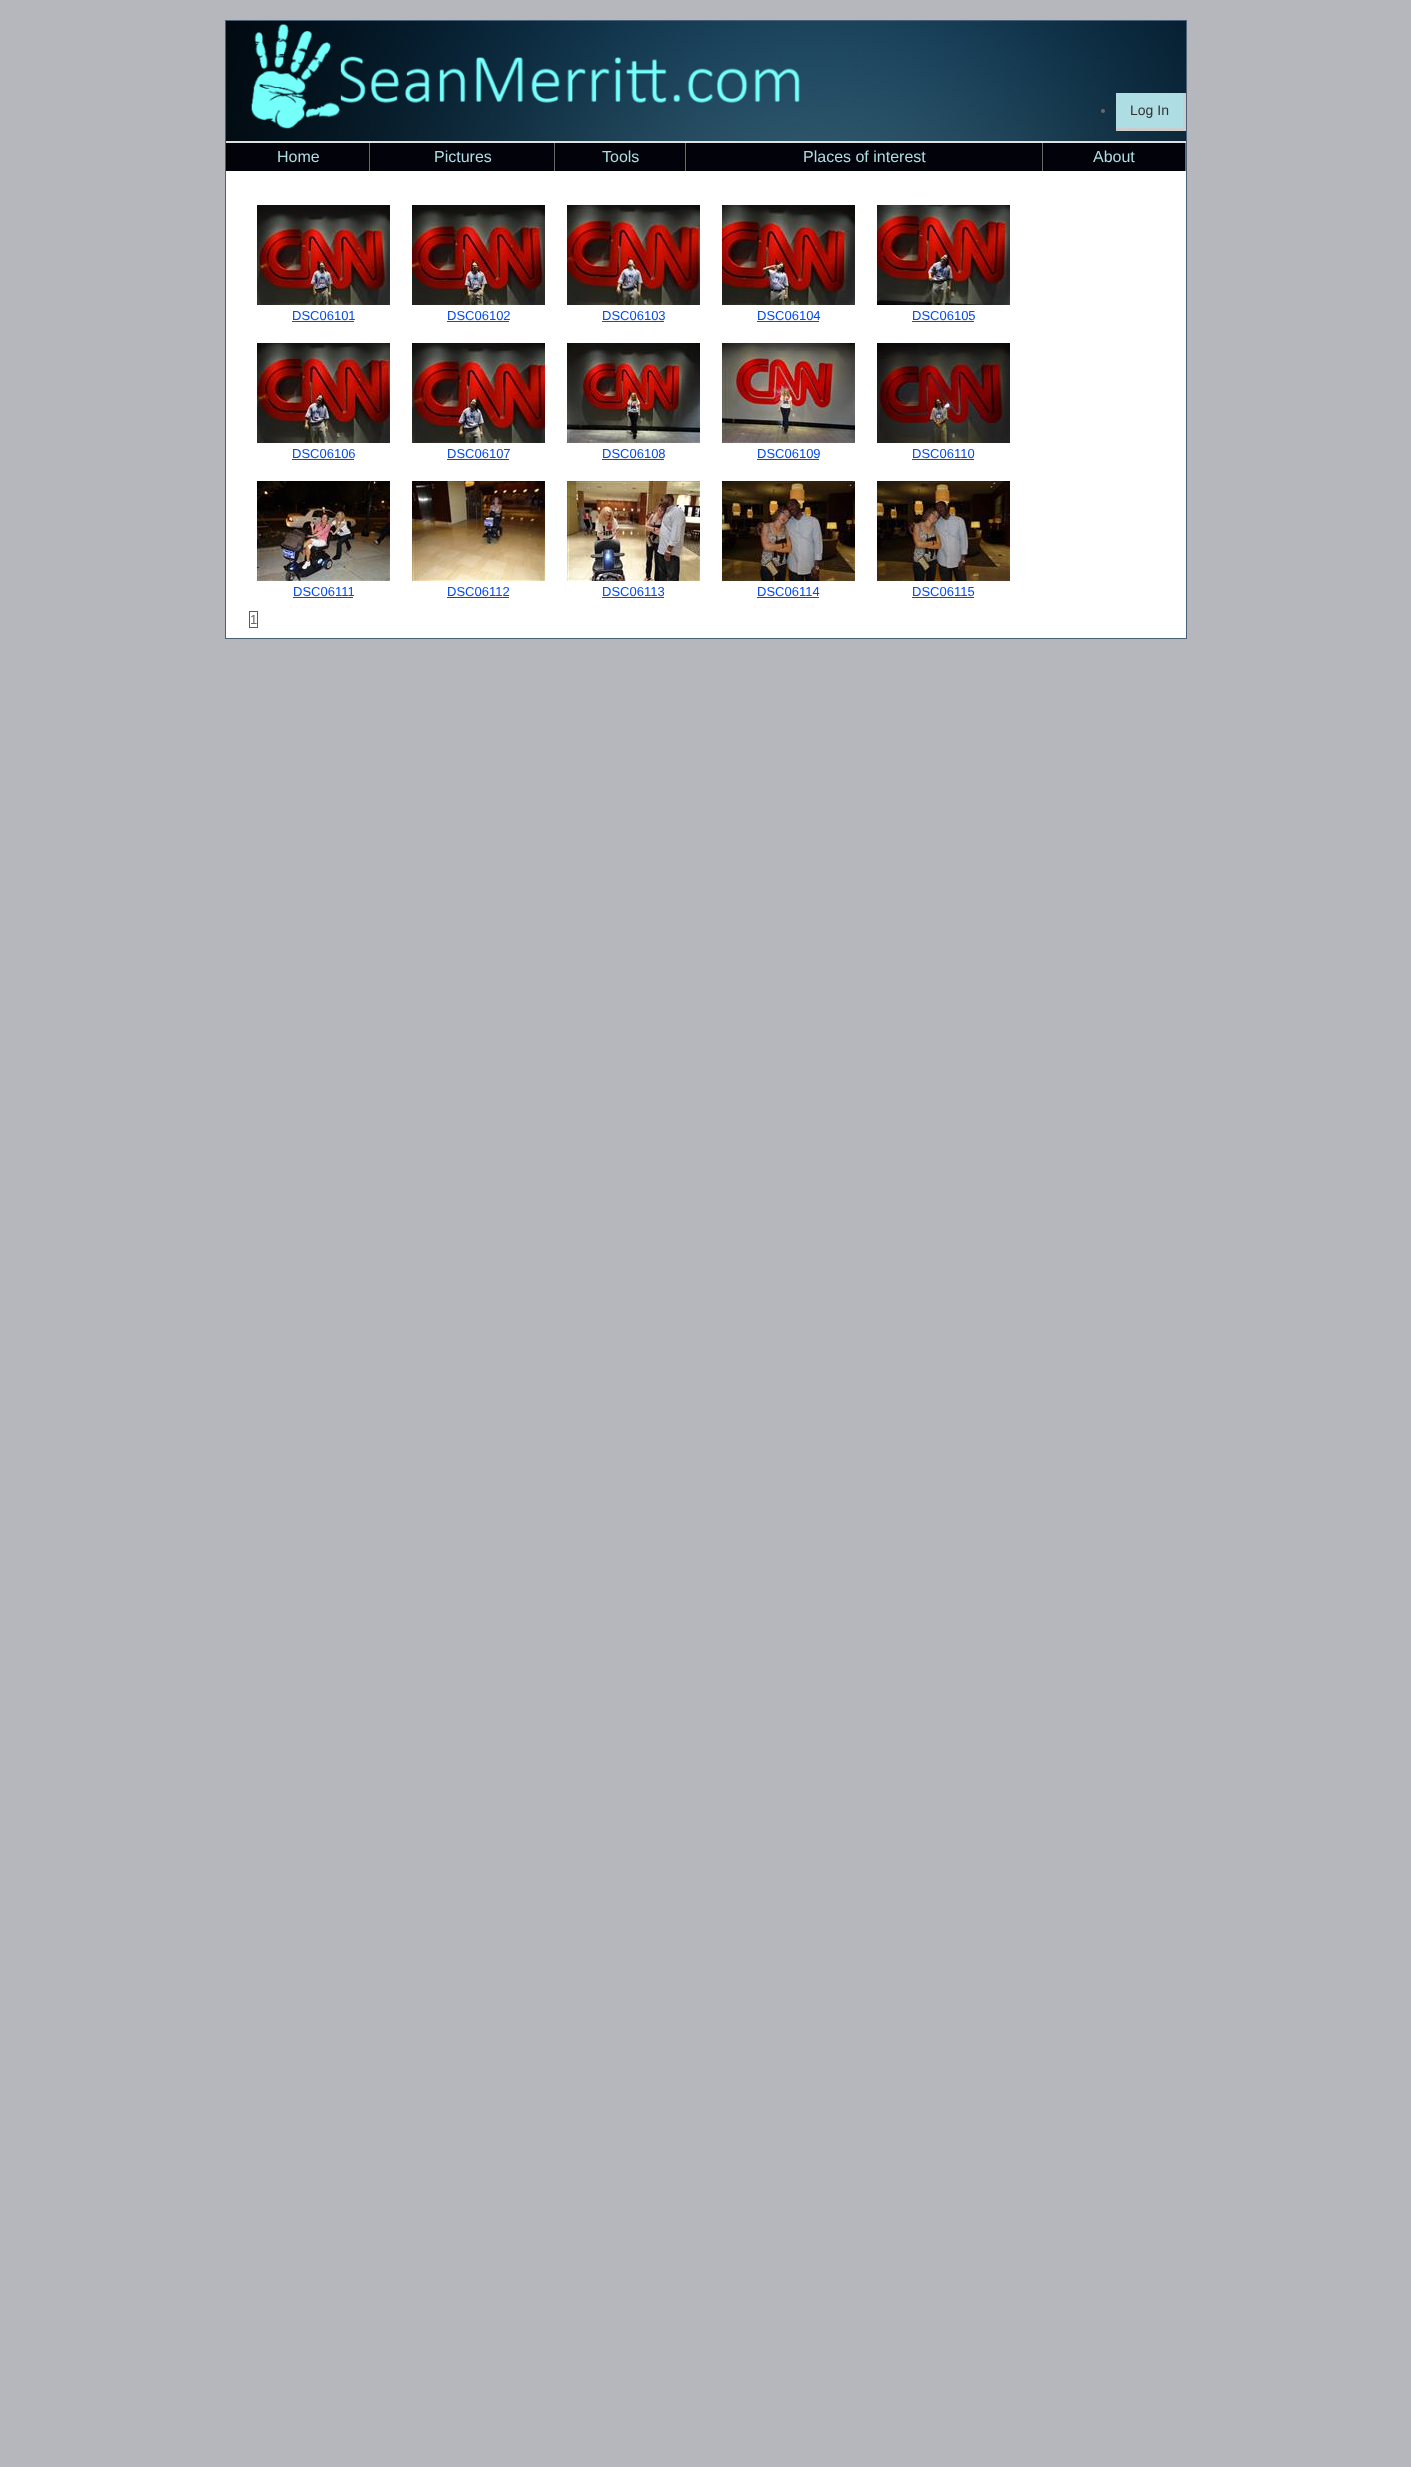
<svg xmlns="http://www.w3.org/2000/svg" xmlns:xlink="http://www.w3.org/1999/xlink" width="1411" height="2467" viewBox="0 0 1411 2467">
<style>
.cls-1{font:14px Liberation Sans;fill:#333333}
.cls-2{font:16px Liberation Sans;fill:#aedee4}
.cls-3{font:13px Liberation Sans;fill:#034af3}
.cls-4{font:13px Liberation Sans;fill:#696969}
</style>
<rect width="100%" height="100%" fill="#b6b7bc"/>
<rect fill="#ffffff" x="226" y="171" width="960" height="467"/>
<rect fill="none" stroke="#496077" x="225.5" y="20.5" width="961" height="618"/>
<image xlink:href="image0.png" x="226" y="21" width="960" height="120"/>
<rect fill="#e0e0e0" x="226" y="141" width="960" height="2"/>
<image xlink:href="image1.png" x="251" y="24" width="549" height="105"/>
<rect fill="#aedee4" x="1116" y="93" width="67" height="35"/>
<rect fill="#cccccc" x="1183" y="93" width="3" height="38"/>
<rect fill="#cccccc" x="1116" y="128" width="70" height="3"/>
<circle fill="#696969" cx="1103" cy="111" r="2"/>
<rect fill="#02020a" x="227" y="143" width="142" height="28"/>
<rect fill="#6b6b6b" x="369" y="143" width="1" height="28"/>
<rect fill="#000000" x="226" y="143" width="1" height="28"/>
<rect fill="#02020a" x="371" y="143" width="183" height="28"/>
<rect fill="#6b6b6b" x="554" y="143" width="1" height="28"/>
<rect fill="#000000" x="370" y="143" width="1" height="28"/>
<rect fill="#02020a" x="556" y="143" width="129" height="28"/>
<rect fill="#6b6b6b" x="685" y="143" width="1" height="28"/>
<rect fill="#000000" x="555" y="143" width="1" height="28"/>
<rect fill="#02020a" x="687" y="143" width="355" height="28"/>
<rect fill="#6b6b6b" x="1042" y="143" width="1" height="28"/>
<rect fill="#000000" x="686" y="143" width="1" height="28"/>
<rect fill="#02020a" x="1044" y="143" width="141" height="28"/>
<rect fill="#6b6b6b" x="1185" y="143" width="1" height="28"/>
<rect fill="#000000" x="1043" y="143" width="1" height="28"/>
<image xlink:href="image2.png" x="257" y="205" width="133" height="100"/>
<rect fill="#034af3" x="292" y="321" width="62" height="1"/>
<image xlink:href="image3.png" x="412" y="205" width="133" height="100"/>
<rect fill="#034af3" x="447" y="321" width="62" height="1"/>
<image xlink:href="image4.png" x="567" y="205" width="133" height="100"/>
<rect fill="#034af3" x="602" y="321" width="62" height="1"/>
<image xlink:href="image5.png" x="722" y="205" width="133" height="100"/>
<rect fill="#034af3" x="757" y="321" width="62" height="1"/>
<image xlink:href="image6.png" x="877" y="205" width="133" height="100"/>
<rect fill="#034af3" x="912" y="321" width="62" height="1"/>
<image xlink:href="image7.png" x="257" y="343" width="133" height="100"/>
<rect fill="#034af3" x="292" y="459" width="62" height="1"/>
<image xlink:href="image8.png" x="412" y="343" width="133" height="100"/>
<rect fill="#034af3" x="447" y="459" width="62" height="1"/>
<image xlink:href="image9.png" x="567" y="343" width="133" height="100"/>
<rect fill="#034af3" x="602" y="459" width="62" height="1"/>
<image xlink:href="image10.png" x="722" y="343" width="133" height="100"/>
<rect fill="#034af3" x="757" y="459" width="62" height="1"/>
<image xlink:href="image11.png" x="877" y="343" width="133" height="100"/>
<rect fill="#034af3" x="912" y="459" width="62" height="1"/>
<image xlink:href="image12.png" x="257" y="481" width="133" height="100"/>
<rect fill="#034af3" x="293" y="597" width="60" height="1"/>
<image xlink:href="image13.png" x="412" y="481" width="133" height="100"/>
<rect fill="#034af3" x="447" y="597" width="62" height="1"/>
<image xlink:href="image14.png" x="567" y="481" width="133" height="100"/>
<rect fill="#034af3" x="602" y="597" width="62" height="1"/>
<image xlink:href="image15.png" x="722" y="481" width="133" height="100"/>
<rect fill="#034af3" x="757" y="597" width="62" height="1"/>
<image xlink:href="image16.png" x="877" y="481" width="133" height="100"/>
<rect fill="#034af3" x="912" y="597" width="62" height="1"/>
<rect fill="none" stroke="#496077" x="249.5" y="611.5" width="8" height="16"/>
<text class="cls-1" x="1130" y="115">Log In</text>
<text class="cls-2" x="277" y="162">Home</text>
<text class="cls-2" x="434" y="162">Pictures</text>
<text class="cls-2" x="602" y="162">Tools</text>
<text class="cls-2" x="803" y="162">Places of interest</text>
<text class="cls-2" x="1093" y="162">About</text>
<text class="cls-3" x="292" y="320">DSC06101</text>
<text class="cls-3" x="447" y="320">DSC06102</text>
<text class="cls-3" x="602" y="320">DSC06103</text>
<text class="cls-3" x="757" y="320">DSC06104</text>
<text class="cls-3" x="912" y="320">DSC06105</text>
<text class="cls-3" x="292" y="458">DSC06106</text>
<text class="cls-3" x="447" y="458">DSC06107</text>
<text class="cls-3" x="602" y="458">DSC06108</text>
<text class="cls-3" x="757" y="458">DSC06109</text>
<text class="cls-3" x="912" y="458">DSC06110</text>
<text class="cls-3" x="293" y="596">DSC06111</text>
<text class="cls-3" x="447" y="596">DSC06112</text>
<text class="cls-3" x="602" y="596">DSC06113</text>
<text class="cls-3" x="757" y="596">DSC06114</text>
<text class="cls-3" x="912" y="596">DSC06115</text>
<text class="cls-4" x="250" y="624">1</text>
</svg>
